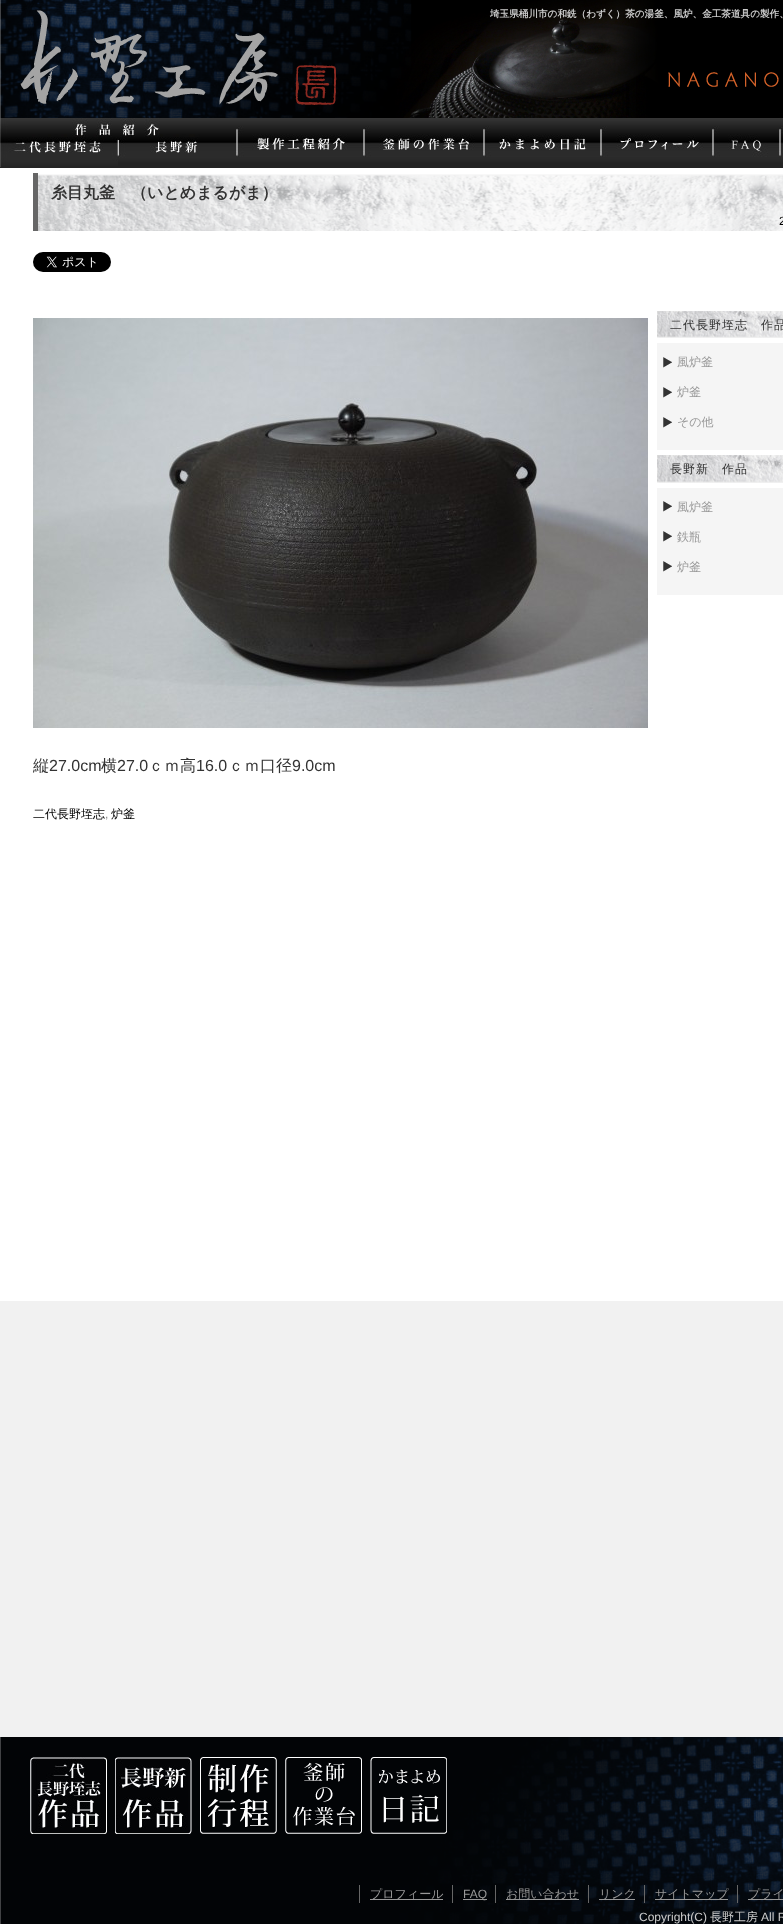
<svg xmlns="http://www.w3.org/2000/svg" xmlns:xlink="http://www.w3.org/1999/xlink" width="783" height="1924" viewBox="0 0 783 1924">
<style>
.cls-1{font:bold 9.6px WenQuanYi Zen Hei;fill:#cccccc}
.cls-2{font:bold 16px WenQuanYi Zen Hei;fill:#333333}
.cls-3{font:12px Liberation Sans;fill:#000000}
.cls-4{font:500 12px WenQuanYi Zen Hei;letter-spacing:1px;fill:#333333}
.cls-5{font:500 12px WenQuanYi Zen Hei;fill:#999999}
.cls-6{font:500 16px WenQuanYi Zen Hei;fill:#333333}
.cls-7{font:16px Liberation Sans;fill:#333333}
.cls-8{font:500 12px WenQuanYi Zen Hei;fill:#000000}
.cls-9{font:12px Liberation Sans;fill:#888888}
.cls-10{font:12px Liberation Sans;fill:#999999}
.cls-11{font:12px Liberation Sans;fill:#cccccc}
.cls-12{font:500 12px WenQuanYi Zen Hei;fill:#cccccc}
</style>
<rect width="100%" height="100%" fill="#f1f1f1"/>
<image xlink:href="image0.png" x="0" y="0" width="783" height="168"/>
<image xlink:href="image1.png" x="0" y="0" width="779" height="118"/>
<image xlink:href="image2.png" x="20" y="10" width="258" height="95"/>
<image xlink:href="image3.png" x="0" y="118" width="236" height="19"/>
<image xlink:href="image4.png" x="0" y="137" width="118" height="30"/>
<image xlink:href="image5.png" x="118" y="137" width="118" height="21"/>
<image xlink:href="image6.png" x="236" y="118" width="127" height="39"/>
<image xlink:href="image7.png" x="363" y="118" width="120" height="39"/>
<image xlink:href="image8.png" x="483" y="118" width="117" height="39"/>
<image xlink:href="image9.png" x="600" y="118" width="112" height="39"/>
<image xlink:href="image10.png" x="712" y="118" width="67" height="39"/>
<image xlink:href="image11.png" x="779" y="118" width="4" height="39"/>
<rect fill="#ffffff" x="0" y="168" width="783" height="1133"/>
<image xlink:href="image12.png" x="38" y="174" width="745" height="57"/>
<rect fill="#666666" x="33" y="173" width="5" height="58"/>
<image xlink:href="image13.png" x="33" y="252" width="78" height="20"/>
<image xlink:href="image14.png" x="657" y="311" width="126" height="27"/>
<rect fill="#f5f5f5" x="657" y="343" width="126" height="107"/>
<image xlink:href="image15.png" x="663" y="357" width="9" height="11"/>
<image xlink:href="image15.png" x="663" y="387" width="9" height="11"/>
<image xlink:href="image15.png" x="663" y="417" width="9" height="11"/>
<image xlink:href="image16.png" x="657" y="455" width="126" height="28"/>
<rect fill="#f5f5f5" x="657" y="488" width="126" height="107"/>
<image xlink:href="image15.png" x="663" y="501" width="9" height="11"/>
<image xlink:href="image15.png" x="663" y="531" width="9" height="11"/>
<image xlink:href="image15.png" x="663" y="561" width="9" height="11"/>
<image xlink:href="image17.png" x="33" y="318" width="615" height="410"/>
<image xlink:href="image18.png" x="0" y="1737" width="783" height="187"/>
<image xlink:href="image19.png" x="30" y="1757" width="77" height="77"/>
<image xlink:href="image20.png" x="115" y="1757" width="77" height="77"/>
<image xlink:href="image21.png" x="200" y="1757" width="77" height="77"/>
<image xlink:href="image22.png" x="285" y="1757" width="77" height="77"/>
<image xlink:href="image23.png" x="370" y="1757" width="77" height="77"/>
<rect fill="#666666" x="359" y="1885" width="1" height="18"/>
<rect fill="#999999" x="370" y="1899" width="73" height="1"/>
<rect fill="#666666" x="452" y="1885" width="1" height="18"/>
<rect fill="#999999" x="463" y="1899" width="24" height="1"/>
<rect fill="#666666" x="495" y="1885" width="1" height="18"/>
<rect fill="#999999" x="506" y="1899" width="73" height="1"/>
<rect fill="#666666" x="588" y="1885" width="1" height="18"/>
<rect fill="#999999" x="599" y="1899" width="36" height="1"/>
<rect fill="#666666" x="644" y="1885" width="1" height="18"/>
<rect fill="#999999" x="655" y="1899" width="73" height="1"/>
<rect fill="#666666" x="737" y="1885" width="1" height="18"/>
<rect fill="#999999" x="748" y="1899" width="35" height="1"/>
<text class="cls-1" x="490" y="17">埼玉県桶川市の和銑（わずく）茶の湯釜、風炉、金工茶道具の製作、</text>
<text class="cls-2" x="51" y="198">糸目丸釜　（いとめまるがま）</text>
<text class="cls-3" x="779" y="225">2</text>
<text class="cls-4" x="670" y="329">二代長野垤志　作品</text>
<text class="cls-5" x="677" y="366">風炉釜</text>
<text class="cls-5" x="677" y="396">炉釜</text>
<text class="cls-5" x="677" y="426">その他</text>
<text class="cls-4" x="670" y="473">長野新　作品</text>
<text class="cls-5" x="677" y="511">風炉釜</text>
<text class="cls-5" x="677" y="541">鉄瓶</text>
<text class="cls-5" x="677" y="571">炉釜</text>
<text class="cls-6" x="33" y="771">縦</text>
<text class="cls-7" x="49" y="771">27.0cm</text>
<text class="cls-6" x="101" y="771">横</text>
<text class="cls-7" x="117" y="771">27.0</text>
<text class="cls-6" x="148" y="771">ｃｍ高</text>
<text class="cls-7" x="196" y="771">16.0</text>
<text class="cls-6" x="228" y="771">ｃｍ口径</text>
<text class="cls-7" x="292" y="771">9.0cm</text>
<text class="cls-8" x="33" y="818">二代長野垤志</text>
<text class="cls-9" x="105" y="818">,</text>
<text class="cls-8" x="111" y="818">炉釜</text>
<text class="cls-5" x="370" y="1898">プロフィール</text>
<text class="cls-10" x="463" y="1898">FAQ</text>
<text class="cls-5" x="506" y="1898">お問い合わせ</text>
<text class="cls-5" x="599" y="1898">リンク</text>
<text class="cls-5" x="655" y="1898">サイトマップ</text>
<text class="cls-5" x="748" y="1898">プライ</text>
<text class="cls-11" x="639" y="1921">Copyright(C)</text>
<text class="cls-12" x="710" y="1921">長野工房</text>
<text class="cls-11" x="761" y="1921">All R</text>
</svg>
